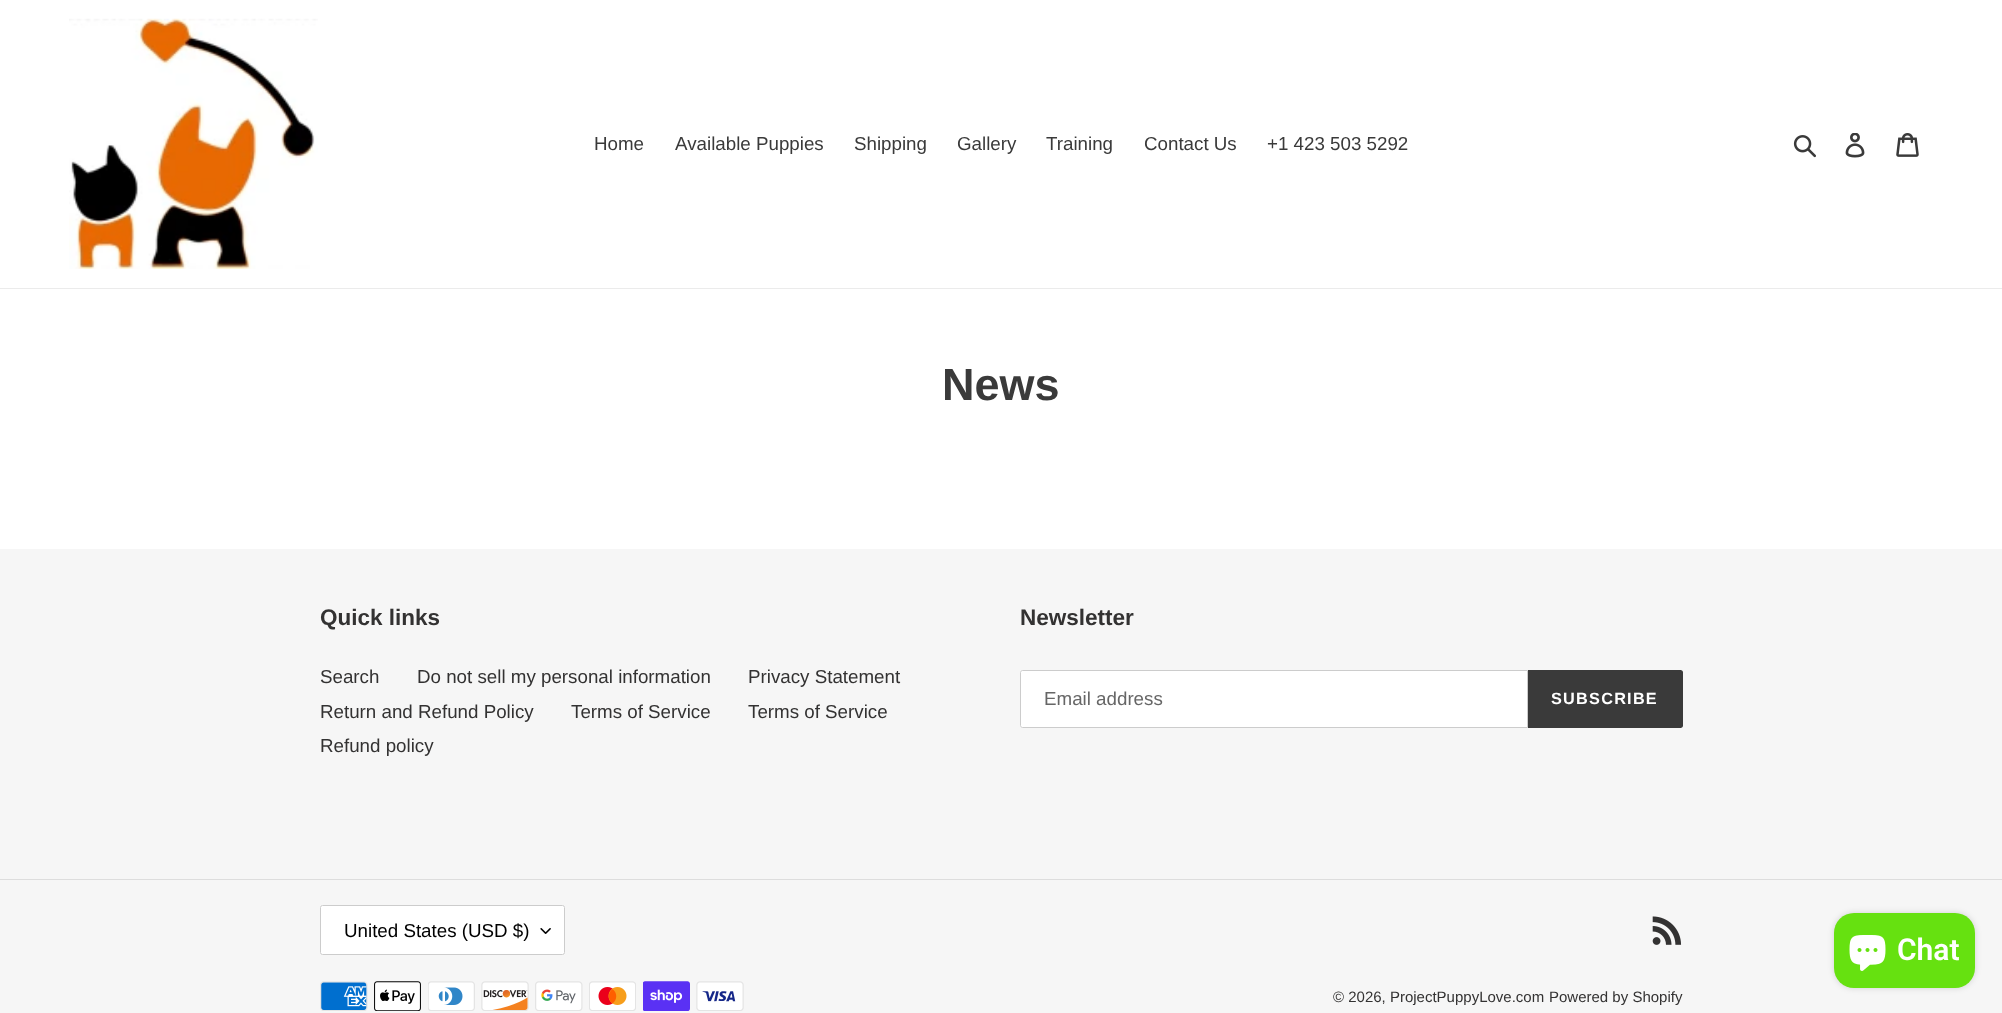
<svg xmlns="http://www.w3.org/2000/svg" xmlns:xlink="http://www.w3.org/1999/xlink" width="2002" height="1013" viewBox="0 0 2002 1013">
<style>
.cls-1{font:18.75px Liberation Sans;fill:#3a3a3a}
.cls-2{font:bold 45px Liberation Sans;fill:#3a3a3a}
.cls-3{font:bold 22.5px Liberation Sans;fill:#333232}
.cls-4{font:18.75px Liberation Sans;fill:#333232}
.cls-5{font:18.75px Liberation Sans;fill:#666666}
.cls-6{font:bold 16.25px Liberation Sans;letter-spacing:1.25px;fill:#ffffff}
.cls-7{font:18.75px Liberation Sans;fill:#000000}
.cls-8{font:15px Liberation Sans;fill:#333232}
.cls-9{font:600 30px Roboto;fill:#ffffff}
</style>
<rect width="100%" height="100%" fill="#ffffff"/>
<rect fill="#ebebeb" x="0" y="288" width="2002" height="1"/>
<image xlink:href="image0.png" x="69" y="18" width="249" height="251"/>
<image xlink:href="image1.png" x="1793" y="135" width="23" height="23"/>
<image xlink:href="image2.png" x="1845" y="133" width="20" height="25"/>
<image xlink:href="image3.png" x="1896" y="133" width="23" height="24"/>
<rect fill="#f6f6f6" x="0" y="549" width="2002" height="464"/>
<path fill="#ffffff" stroke="#cccccc" d="M1022.5 670.5H1527.5V727.5H1022.5C1021.5 727.5 1020.5 726.5 1020.5 725.5V672.5C1020.5 671.5 1021.5 670.5 1022.5 670.5Z"/>
<path fill="#3a3a3a" d="M1528 670H1680.5C1682 670 1683 671 1683 672.5V725.5C1683 727 1682 728 1680.5 728H1528Z"/>
<rect fill="#dddddd" x="0" y="879" width="2002" height="1"/>
<rect fill="#ffffff" x="320" y="905" width="245" height="50" rx="2.5"/>
<image xlink:href="image4.png" x="540" y="928" width="11" height="6"/>
<rect fill="none" stroke="#cccccc" x="320.5" y="905.5" width="244" height="49" rx="2"/>
<image xlink:href="image5.png" x="1652" y="916" width="30" height="29"/>
<image xlink:href="image6.png" x="320" y="981" width="48" height="30"/>
<image xlink:href="image7.png" x="374" y="981" width="47" height="30"/>
<image xlink:href="image8.png" x="428" y="981" width="47" height="30"/>
<image xlink:href="image9.png" x="481" y="981" width="48" height="30"/>
<image xlink:href="image10.png" x="535" y="981" width="48" height="30"/>
<image xlink:href="image11.png" x="589" y="981" width="47" height="30"/>
<image xlink:href="image12.png" x="643" y="981" width="47" height="30"/>
<image xlink:href="image13.png" x="696" y="981" width="48" height="30"/>
<rect fill="#000000" fill-opacity="0.15" filter="blur(3px)" x="1834" y="913" width="141" height="75" rx="20"/>
<rect fill="#66e110" x="1834" y="913" width="141" height="75" rx="20"/>
<image xlink:href="image14.png" x="1849" y="935" width="37" height="36"/>
<text class="cls-1" x="594" y="150">Home</text>
<text class="cls-1" x="675" y="150">Available Puppies</text>
<text class="cls-1" x="854" y="150">Shipping</text>
<text class="cls-1" x="957" y="150">Gallery</text>
<text class="cls-1" x="1046" y="150">Training</text>
<text class="cls-1" x="1144" y="150">Contact Us</text>
<text class="cls-1" x="1267" y="150">+1 423 503 5292</text>
<text class="cls-2" x="942" y="400">News</text>
<text class="cls-3" x="320" y="625">Quick links</text>
<text class="cls-4" x="320" y="683">Search</text>
<text class="cls-4" x="417" y="683">Do not sell my personal information</text>
<text class="cls-4" x="748" y="683">Privacy Statement</text>
<text class="cls-4" x="320" y="718">Return and Refund Policy</text>
<text class="cls-4" x="571" y="718">Terms of Service</text>
<text class="cls-4" x="748" y="718">Terms of Service</text>
<text class="cls-4" x="320" y="752">Refund policy</text>
<text class="cls-3" x="1020" y="625">Newsletter</text>
<text class="cls-5" x="1044" y="705">Email address</text>
<text class="cls-6" x="1551" y="704">SUBSCRIBE</text>
<text class="cls-7" x="344" y="937">United States (USD $)</text>
<text class="cls-8" x="1333" y="1002">© 2026, ProjectPuppyLove.com</text>
<text class="cls-8" x="1549" y="1002">Powered by Shopify</text>
<text class="cls-9" x="1897" y="960">Chat</text>
</svg>
